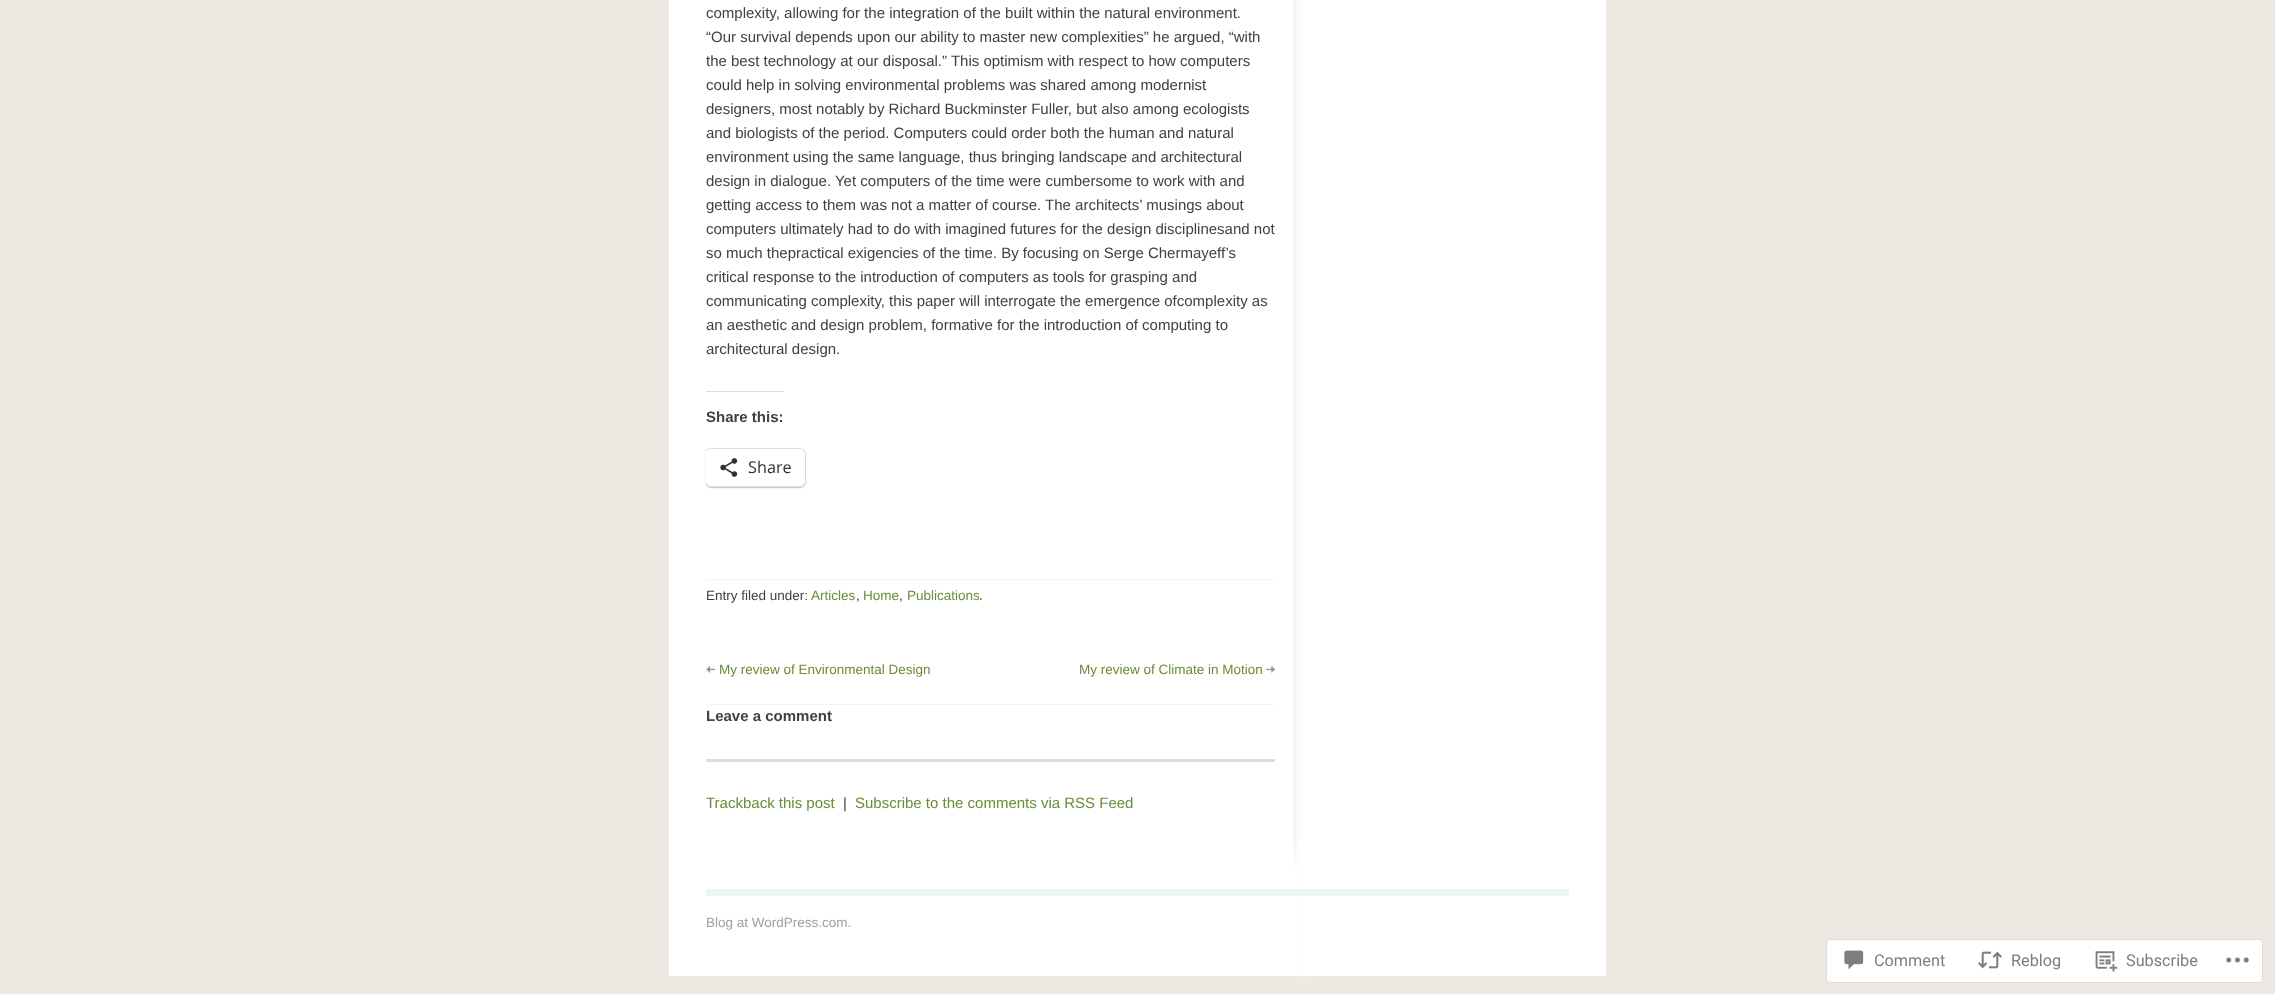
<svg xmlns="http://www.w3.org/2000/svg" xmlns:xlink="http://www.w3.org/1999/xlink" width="2275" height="994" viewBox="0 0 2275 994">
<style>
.cls-1{font:15px Liberation Sans;fill:#414141}
.cls-2{font:bold 15px Liberation Sans;fill:#414141}
.cls-3{font:16.25px Open Sans;fill:#2c3338}
.cls-4{font:13.5px Liberation Sans;fill:#414141}
.cls-5{font:13.5px Liberation Sans;fill:#6c8c37}
.cls-6{font:15px Liberation Sans;fill:#6c8c37}
.cls-7{font:13.5px Liberation Sans;fill:#a0a0a0}
.cls-8{font:16.25px Roboto;fill:#7a7e84}
</style>
<defs>
<clipPath id="clip1"><rect x="706" y="0" width="569" height="608"/></clipPath>
</defs>
<rect width="100%" height="100%" fill="#ede8e2"/>
<rect fill="#ffffff" x="669" y="0" width="937" height="976"/>
<image xlink:href="image0.png" x="1293" y="0" width="19" height="977"/>
<rect fill="#dcdcde" x="706" y="391" width="78" height="1"/>
<g clip-path="url(#clip1)">
<rect fill="none" stroke="#e0e0e0" x="705.5" y="448.5" width="100" height="39" rx="5.5"/>
</g>
<rect fill="#000000" fill-opacity="0.12" filter="blur(1px)" x="706" y="450" width="99" height="38" rx="5"/>
<rect fill="#ffffff" x="706" y="449" width="99" height="37" rx="5"/>
<image xlink:href="image1.png" x="720" y="458" width="18" height="19"/>
<rect fill="#f3f4f4" x="706" y="579" width="569" height="1"/>
<rect fill="#f3f4f4" x="706" y="704" width="569" height="1"/>
<image xlink:href="image2.png" x="706" y="666" width="9" height="7"/>
<image xlink:href="image3.png" x="1266" y="666" width="9" height="7"/>
<rect fill="#dcdcde" x="706" y="759" width="569" height="3"/>
<rect fill="#ffffff" x="1293" y="839" width="7" height="137"/>
<image xlink:href="image4.png" x="1293" y="839" width="6" height="28"/>
<rect fill="#e9f7f6" x="706" y="889" width="863" height="7"/>
<rect fill="#fffffe" stroke="#dcdcde" x="1826.5" y="939.5" width="436" height="43" rx="3.5"/>
<image xlink:href="image5.png" x="1844" y="950" width="20" height="20"/>
<image xlink:href="image6.png" x="1978" y="951" width="24" height="18"/>
<image xlink:href="image7.png" x="2095" y="951" width="23" height="21"/>
<image xlink:href="image8.png" x="2226" y="957" width="23" height="6"/>
<text class="cls-1"><tspan x="706" y="18">complexity, allowing for the integration of the built within the natural environment.</tspan><tspan x="706" y="42">“Our survival depends upon our ability to master new complexities” he argued, “with</tspan><tspan x="706" y="66">the best technology at our disposal.” This optimism with respect to how computers</tspan><tspan x="706" y="90">could help in solving environmental problems was shared among modernist</tspan><tspan x="706" y="114">designers, most notably by Richard Buckminster Fuller, but also among ecologists</tspan><tspan x="706" y="138">and biologists of the period. Computers could order both the human and natural</tspan><tspan x="706" y="162">environment using the same language, thus bringing landscape and architectural</tspan><tspan x="706" y="186">design in dialogue. Yet computers of the time were cumbersome to work with and</tspan><tspan x="706" y="210">getting access to them was not a matter of course. The architects’ musings about</tspan><tspan x="706" y="234">computers ultimately had to do with imagined futures for the design disciplinesand not</tspan><tspan x="706" y="258">so much thepractical exigencies of the time. By focusing on Serge Chermayeff’s</tspan><tspan x="706" y="282">critical response to the introduction of computers as tools for grasping and</tspan><tspan x="706" y="306">communicating complexity, this paper will interrogate the emergence ofcomplexity as</tspan><tspan x="706" y="330">an aesthetic and design problem, formative for the introduction of computing to</tspan><tspan x="706" y="354">architectural design.</tspan></text>
<text class="cls-2" x="706" y="422">Share this:</text>
<text class="cls-3" x="748" y="473">Share</text>
<text class="cls-4" x="706" y="600">Entry filed under:</text>
<text class="cls-5" x="811" y="600">Articles</text>
<text class="cls-4" x="856" y="600">,</text>
<text class="cls-5" x="863" y="600">Home</text>
<text class="cls-4" x="899" y="600">,</text>
<text class="cls-5" x="907" y="600">Publications</text>
<text class="cls-4" x="979" y="600">.</text>
<text class="cls-5" x="719" y="674">My review of Environmental Design</text>
<text class="cls-5" x="1079" y="674">My review of Climate in Motion</text>
<text class="cls-2" x="706" y="721">Leave a comment</text>
<text class="cls-6" x="706" y="808">Trackback this post</text>
<text class="cls-1" x="843" y="808">|</text>
<text class="cls-6" x="855" y="808">Subscribe to the comments via RSS Feed</text>
<text class="cls-7" x="706" y="927">Blog at WordPress.com.</text>
<text class="cls-8" x="1874" y="966">Comment</text>
<text class="cls-8" x="2011" y="966">Reblog</text>
<text class="cls-8" x="2126" y="966">Subscribe</text>
</svg>
